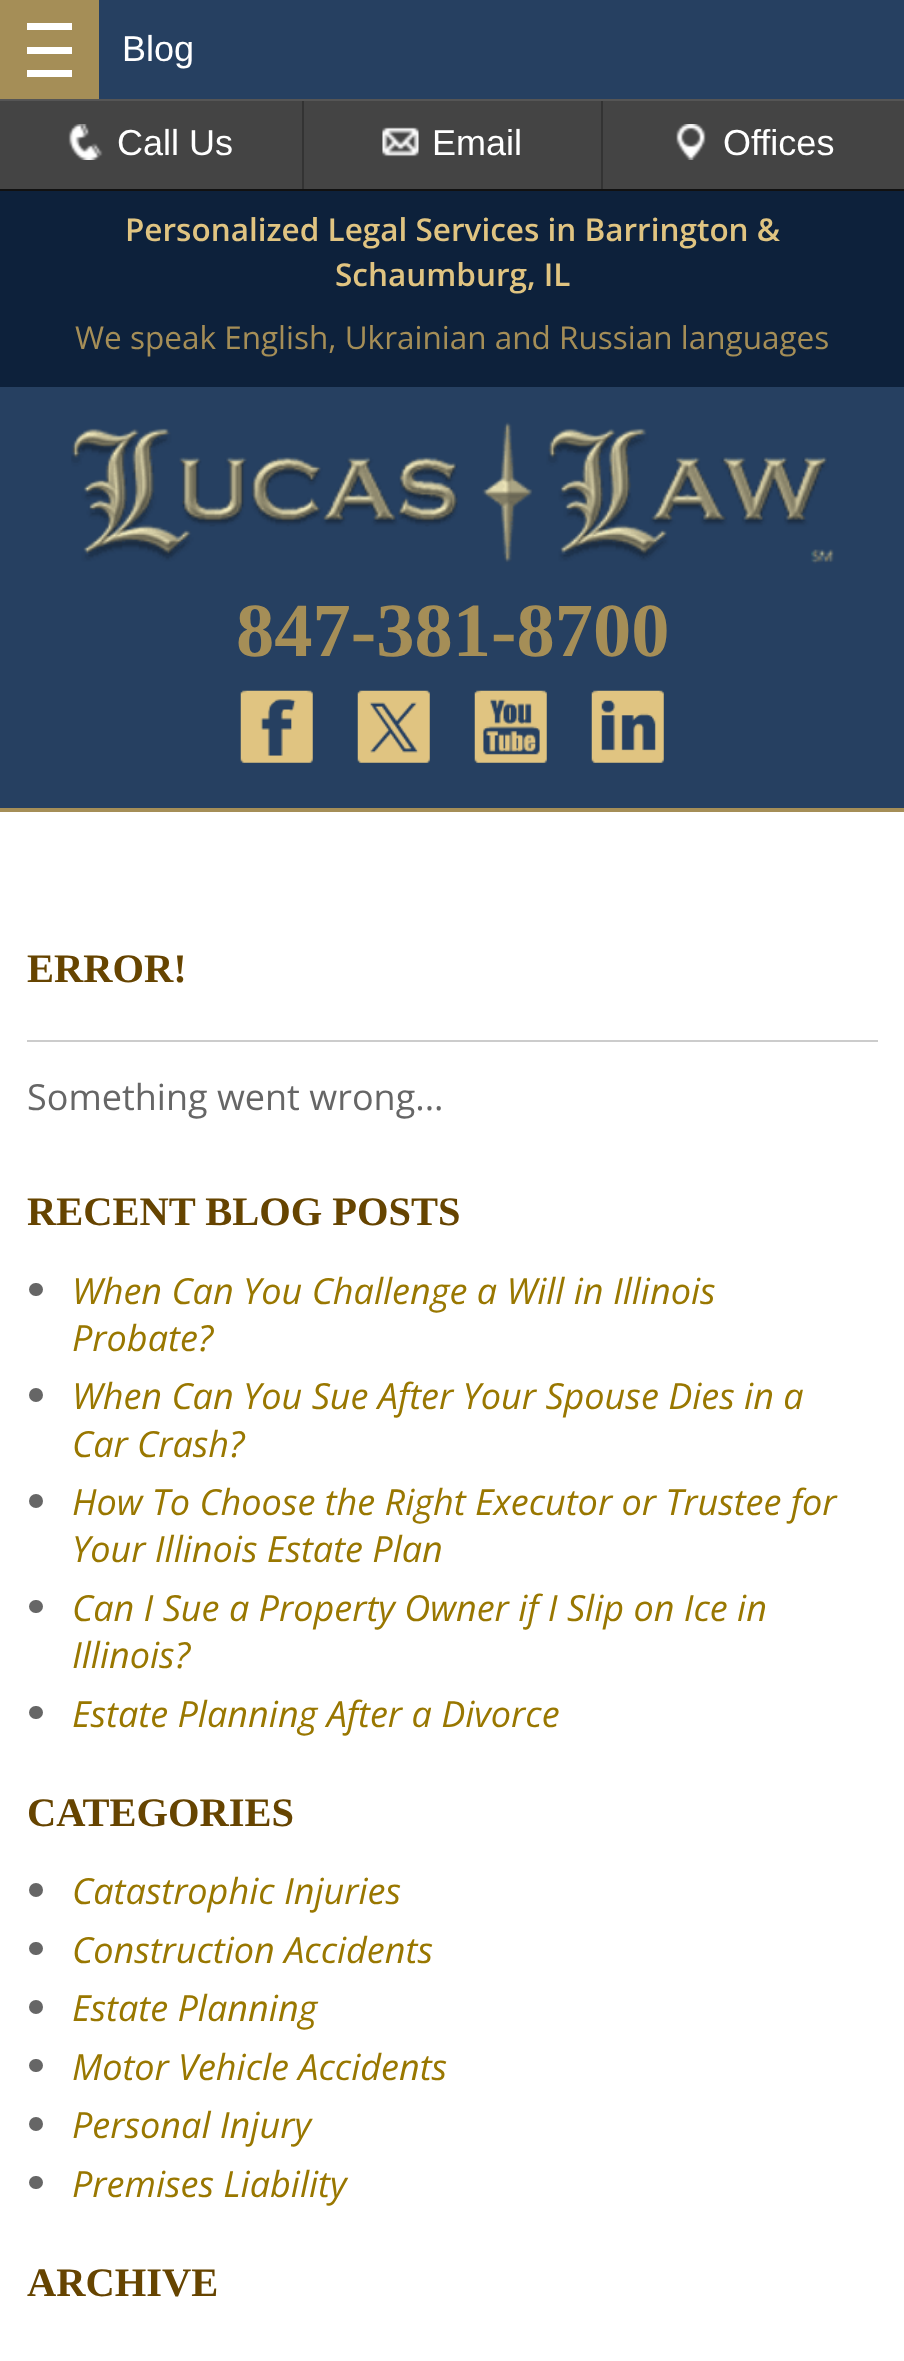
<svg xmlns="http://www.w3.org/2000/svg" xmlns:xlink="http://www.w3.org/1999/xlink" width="904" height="2361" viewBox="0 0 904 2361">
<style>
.cls-1{font:36px Liberation Sans;fill:#ffffff}
.cls-2{font:600 31.5px Open Sans;fill:#e0c481}
.cls-3{font:31.5px Open Sans;fill:#a58e57}
.cls-4{font:bold 76.5px Liberation Serif;fill:#a58e57}
.cls-5{font:bold 40.5px Liberation Serif;fill:#664400}
.cls-6{font:36px Open Sans;fill:#666666}
.cls-7{font:italic 36px Open Sans;fill:#997700}
</style>
<rect width="100%" height="100%" fill="#ffffff"/>
<rect fill="#264061" x="99" y="0" width="805" height="99"/>
<rect fill="#333333" x="601" y="99" width="2" height="90"/>
<rect fill="#333333" x="302" y="99" width="2" height="90"/>
<rect fill="#555555" x="0" y="99" width="904" height="2"/>
<rect fill="#a58e57" x="0" y="0" width="99" height="99"/>
<rect fill="#ffffff" x="27" y="23" width="45" height="7"/>
<rect fill="#ffffff" x="27" y="47" width="45" height="7"/>
<rect fill="#ffffff" x="27" y="70" width="45" height="7"/>
<rect fill="#111111" x="0" y="189" width="904" height="2"/>
<rect fill="#444444" x="0" y="101" width="302" height="88"/>
<image xlink:href="image0.png" x="68" y="124" width="35" height="36"/>
<rect fill="#444444" x="304" y="101" width="297" height="88"/>
<image xlink:href="image1.png" x="382" y="127" width="37" height="30"/>
<rect fill="#444444" x="603" y="101" width="301" height="88"/>
<image xlink:href="image2.png" x="676" y="124" width="30" height="36"/>
<rect fill="#0d213b" x="0" y="191" width="904" height="196"/>
<rect fill="#264061" x="0" y="387" width="904" height="421"/>
<rect fill="#a58e57" x="0" y="808" width="904" height="4"/>
<image xlink:href="image3.png" x="71" y="422" width="763" height="142"/>
<image xlink:href="image4.png" x="240" y="690" width="73" height="73"/>
<image xlink:href="image5.png" x="357" y="690" width="73" height="73"/>
<image xlink:href="image6.png" x="474" y="690" width="73" height="73"/>
<image xlink:href="image7.png" x="591" y="690" width="73" height="73"/>
<rect fill="#cccccc" x="27" y="1040" width="851" height="2"/>
<rect fill="#666666" x="29" y="1283" width="14" height="13" rx="6.5"/>
<circle fill="#666666" cx="36" cy="1395" r="7"/>
<circle fill="#666666" cx="36" cy="1501" r="7"/>
<rect fill="#666666" x="29" y="1600" width="14" height="13" rx="6.5"/>
<rect fill="#666666" x="29" y="1706" width="14" height="13" rx="6.5"/>
<circle fill="#666666" cx="36" cy="1890" r="7"/>
<rect fill="#666666" x="29" y="1942" width="14" height="13" rx="6.5"/>
<circle fill="#666666" cx="36" cy="2007" r="7"/>
<rect fill="#666666" x="29" y="2059" width="14" height="13" rx="6.5"/>
<circle fill="#666666" cx="36" cy="2124" r="7"/>
<rect fill="#666666" x="29" y="2176" width="14" height="13" rx="6.5"/>
<text class="cls-1" x="122" y="61">Blog</text>
<text class="cls-1" x="117" y="155">Call Us</text>
<text class="cls-1" x="432" y="155">Email</text>
<text class="cls-1" x="723" y="155">Offices</text>
<text class="cls-2" x="125" y="241">Personalized Legal Services in Barrington &amp;</text>
<text class="cls-2" x="335" y="286">Schaumburg, IL</text>
<text class="cls-3" x="75" y="349">We speak English, Ukrainian and Russian languages</text>
<text class="cls-4" x="236" y="656">847-381-8700</text>
<text class="cls-5" x="27" y="982">ERROR!</text>
<text class="cls-6" x="27" y="1110">Something went wrong...</text>
<text class="cls-5" x="27" y="1225">RECENT BLOG POSTS</text>
<text class="cls-7"><tspan x="72" y="1304">When Can You Challenge a Will in Illinois</tspan><tspan x="72" y="1351">Probate?</tspan><tspan x="72" y="1409">When Can You Sue After Your Spouse Dies in a</tspan><tspan x="72" y="1457">Car Crash?</tspan><tspan x="72" y="1515">How To Choose the Right Executor or Trustee for</tspan><tspan x="72" y="1562">Your Illinois Estate Plan</tspan><tspan x="72" y="1621">Can I Sue a Property Owner if I Slip on Ice in</tspan><tspan x="72" y="1668">Illinois?</tspan><tspan x="72" y="1727">Estate Planning After a Divorce</tspan></text>
<text class="cls-5" x="27" y="1826">CATEGORIES</text>
<text class="cls-7"><tspan x="72" y="1904">Catastrophic Injuries</tspan><tspan x="72" y="1963">Construction Accidents</tspan><tspan x="72" y="2021">Estate Planning</tspan><tspan x="72" y="2080">Motor Vehicle Accidents</tspan><tspan x="72" y="2138">Personal Injury</tspan><tspan x="72" y="2197">Premises Liability</tspan></text>
<text class="cls-5" x="27" y="2296">ARCHIVE</text>
</svg>
